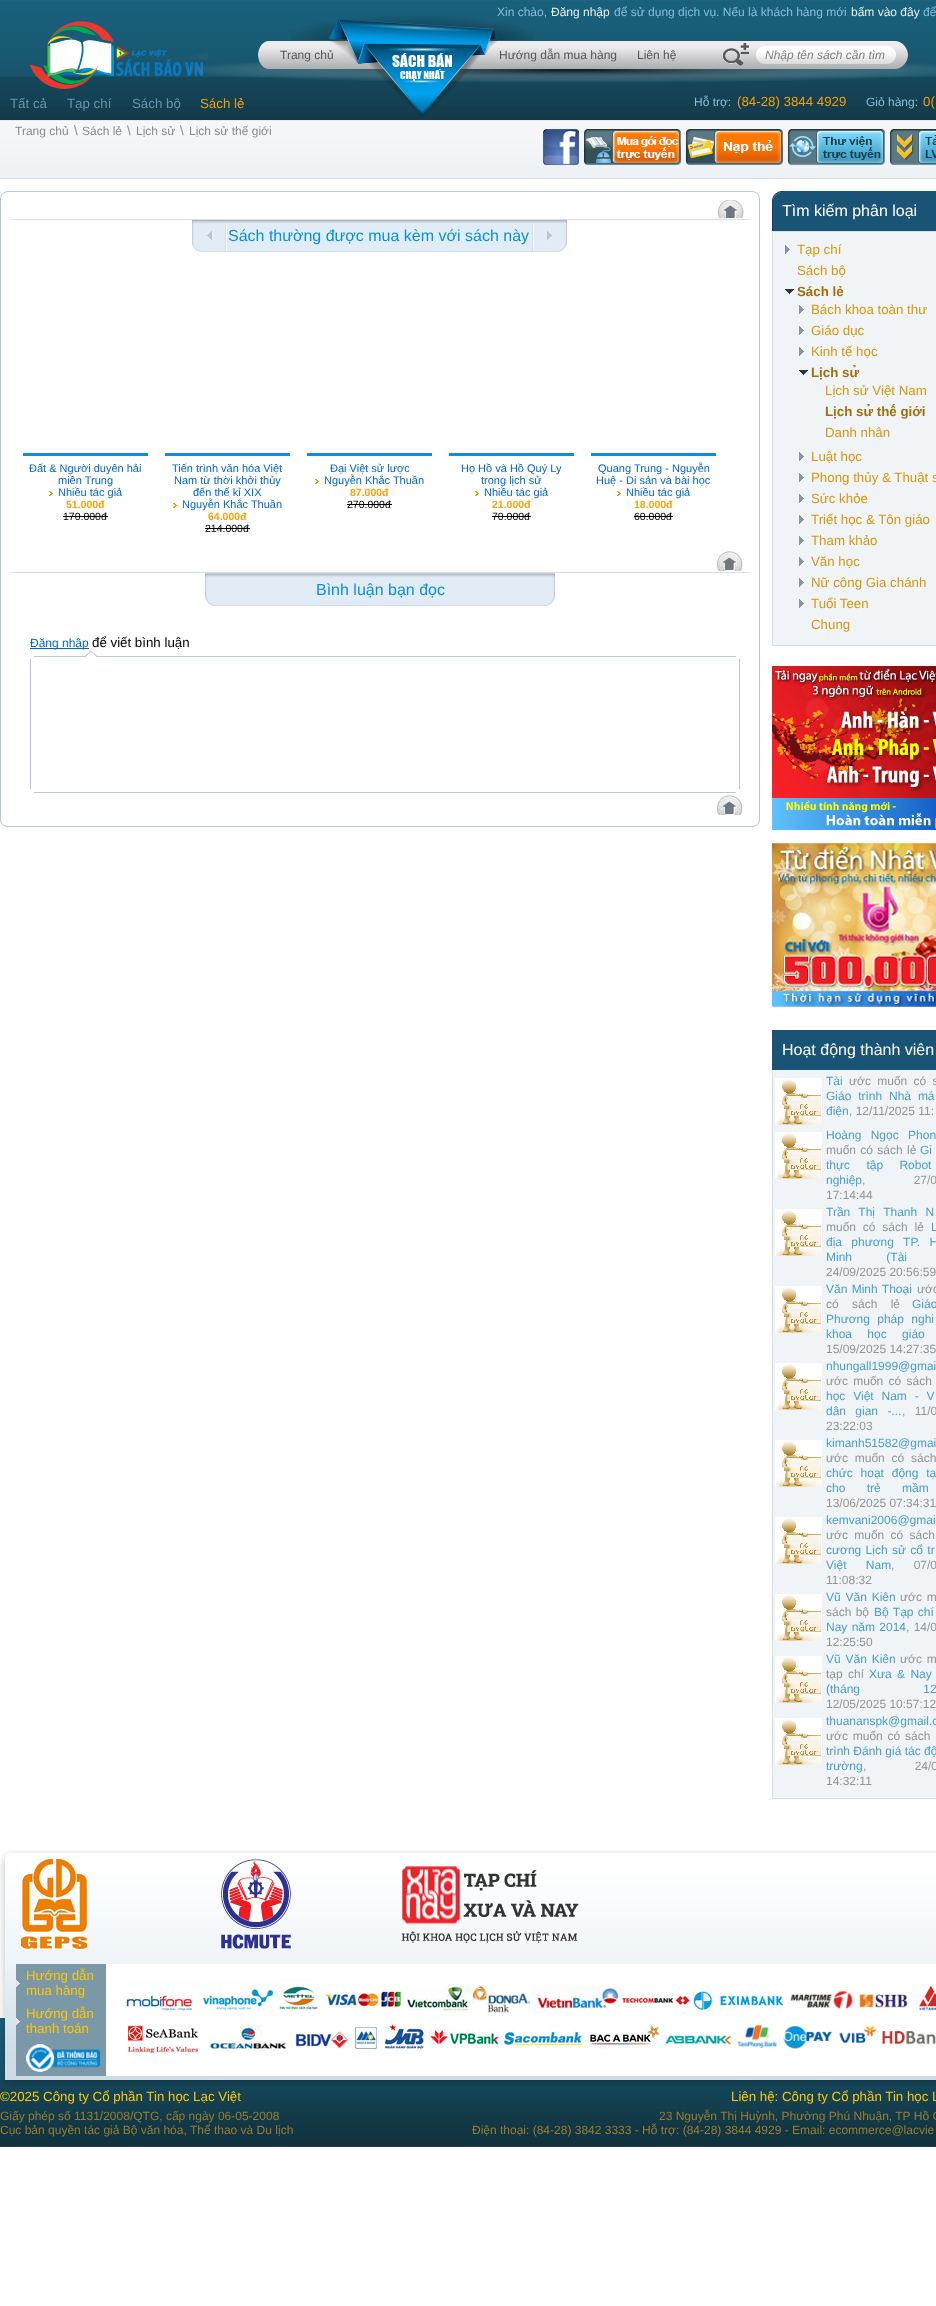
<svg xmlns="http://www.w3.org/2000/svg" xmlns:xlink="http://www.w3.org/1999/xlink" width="936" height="2306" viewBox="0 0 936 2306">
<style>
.cls-1{font:12px Liberation Sans;fill:#8abdda}
.cls-2{font:12px Liberation Sans;fill:#e7f1e8}
.cls-3{font:12px Liberation Sans;fill:#575759}
.cls-4{font:italic 12px Liberation Sans;fill:#808080}
.cls-5{font:13.3px Liberation Sans;fill:#6395ae}
.cls-6{font:13.3px Liberation Sans;fill:#f29d0c}
.cls-7{font:12px Liberation Sans;fill:#848e90}
.cls-8{font:13.3px Liberation Sans;fill:#848e90}
.cls-9{font:16px Liberation Sans;fill:#0a90d7}
.cls-10{font:11px Liberation Sans;fill:#0066cc}
.cls-11{font:bold 10.5px Liberation Sans;fill:#f8a30b}
.cls-12{font:10.5px Liberation Sans;fill:#000000}
.cls-13{font:12px Liberation Sans;fill:#0066cc}
.cls-14{font:13.3px Liberation Sans;fill:#000000}
.cls-15{font:16px Liberation Sans;fill:#ffffff}
.cls-16{font:13.3px Liberation Sans;fill:#d7970f}
.cls-17{font:bold 13.3px Liberation Sans;fill:#a06f0a}
.cls-18{font:12px Liberation Sans;fill:#4a9dcf}
.cls-19{font:12px Liberation Sans;fill:#949494}
.cls-20{font:13.3px Liberation Sans;fill:#ffc603}
.cls-21{font:12px Liberation Sans;fill:#957f33}
</style>
<rect width="100%" height="100%" fill="#ffffff"/>
<image xlink:href="image0.png" x="0" y="0" width="936" height="120"/>
<image xlink:href="image1.png" x="30" y="21" width="178" height="68"/>
<image xlink:href="image2.png" x="188" y="62" width="748" height="20"/>
<image xlink:href="image3.png" x="258" y="41" width="12" height="28"/>
<image xlink:href="image4.png" x="896" y="41" width="12" height="28"/>
<image xlink:href="image5.png" x="270" y="41" width="626" height="28"/>
<image xlink:href="image7.png" x="723" y="43" width="26" height="23"/>
<image xlink:href="image8.png" x="756" y="46" width="9" height="18"/>
<image xlink:href="image9.png" x="887" y="46" width="9" height="18"/>
<image xlink:href="image10.png" x="765" y="46" width="122" height="18"/>
<image xlink:href="image11.png" x="0" y="120" width="936" height="59"/>
<image xlink:href="image12.png" x="543" y="129" width="36" height="36"/>
<image xlink:href="image13.png" x="583" y="129" width="99" height="38"/>
<image xlink:href="image14.png" x="685" y="129" width="99" height="38"/>
<image xlink:href="image15.png" x="787" y="129" width="99" height="38"/>
<image xlink:href="image16.png" x="889" y="129" width="47" height="38"/>
<image xlink:href="image17.png" x="0" y="191" width="9" height="9"/>
<image xlink:href="image18.png" x="751" y="191" width="9" height="9"/>
<rect fill="#bdc9d2" x="9" y="191" width="742" height="1"/>
<rect fill="#bdc9d2" x="0" y="200" width="1" height="618"/>
<rect fill="#bdc9d2" x="759" y="200" width="1" height="618"/>
<image xlink:href="image19.png" x="717" y="200" width="27" height="18"/>
<image xlink:href="image20.png" x="11" y="218" width="739" height="2"/>
<image xlink:href="image21.png" x="191" y="219" width="36" height="33"/>
<image xlink:href="image22.png" x="227" y="220" width="305" height="32"/>
<image xlink:href="image23.png" x="532" y="220" width="35" height="32"/>
<rect fill="#0c8eda" x="23" y="453" width="125" height="3"/>
<image xlink:href="image24.png" x="49" y="491" width="4" height="5"/>
<rect fill="#000000" x="63" y="516" width="45" height="1"/>
<rect fill="#0c8eda" x="165" y="453" width="125" height="3"/>
<image xlink:href="image24.png" x="173" y="503" width="4" height="5"/>
<rect fill="#000000" x="205" y="528" width="45" height="1"/>
<rect fill="#0c8eda" x="307" y="453" width="125" height="3"/>
<image xlink:href="image24.png" x="315" y="479" width="4" height="5"/>
<rect fill="#000000" x="347" y="504" width="45" height="1"/>
<rect fill="#0c8eda" x="449" y="453" width="125" height="3"/>
<image xlink:href="image24.png" x="475" y="491" width="4" height="5"/>
<rect fill="#000000" x="492" y="516" width="39" height="1"/>
<rect fill="#0c8eda" x="591" y="453" width="125" height="3"/>
<image xlink:href="image24.png" x="617" y="491" width="4" height="5"/>
<rect fill="#000000" x="634" y="516" width="39" height="1"/>
<image xlink:href="image25.png" x="716" y="551" width="27" height="20"/>
<rect fill="#d7e0e7" x="11" y="572" width="739" height="1"/>
<image xlink:href="image26.png" x="205" y="573" width="10" height="33"/>
<image xlink:href="image27.png" x="545" y="573" width="10" height="33"/>
<image xlink:href="image28.png" x="215" y="573" width="330" height="33"/>
<rect fill="#0066cc" x="30" y="648" width="59" height="1"/>
<rect fill="#bdc9d2" x="34" y="656" width="702" height="1"/>
<image xlink:href="image29.png" x="85" y="650" width="12" height="7"/>
<rect fill="#bdc9d2" x="30" y="659" width="1" height="130"/>
<rect fill="#bdc9d2" x="739" y="659" width="1" height="130"/>
<rect fill="#bdc9d2" x="34" y="792" width="702" height="1"/>
<image xlink:href="image25.png" x="716" y="795" width="27" height="20"/>
<image xlink:href="image30.png" x="0" y="818" width="9" height="9"/>
<image xlink:href="image31.png" x="751" y="818" width="9" height="9"/>
<rect fill="#bdc9d2" x="9" y="826" width="742" height="1"/>
<image xlink:href="image32.png" x="772" y="191" width="11" height="40"/>
<rect fill="#195476" x="783" y="191" width="153" height="40"/>
<rect fill="#f0f4f7" x="773" y="232" width="163" height="413"/>
<rect fill="#d7e0e7" x="772" y="645" width="164" height="1"/>
<rect fill="#d7e0e7" x="772" y="231" width="1" height="415"/>
<rect fill="#d7e0e7" x="773" y="231" width="163" height="1"/>
<image xlink:href="image33.png" x="785" y="245" width="5" height="9"/>
<image xlink:href="image34.png" x="785" y="289" width="9" height="5"/>
<image xlink:href="image33.png" x="799" y="305" width="5" height="9"/>
<image xlink:href="image33.png" x="799" y="326" width="5" height="9"/>
<image xlink:href="image33.png" x="799" y="347" width="5" height="9"/>
<image xlink:href="image34.png" x="799" y="370" width="9" height="5"/>
<image xlink:href="image33.png" x="799" y="452" width="5" height="9"/>
<image xlink:href="image33.png" x="799" y="473" width="5" height="9"/>
<image xlink:href="image33.png" x="799" y="494" width="5" height="9"/>
<image xlink:href="image33.png" x="799" y="515" width="5" height="9"/>
<image xlink:href="image33.png" x="799" y="536" width="5" height="9"/>
<image xlink:href="image33.png" x="799" y="557" width="5" height="9"/>
<image xlink:href="image33.png" x="799" y="578" width="5" height="9"/>
<image xlink:href="image33.png" x="799" y="599" width="5" height="9"/>
<image xlink:href="image35.png" x="772" y="666" width="164" height="164"/>
<image xlink:href="image36.png" x="772" y="843" width="164" height="164"/>
<rect fill="#195476" x="772" y="1030" width="164" height="40"/>
<rect fill="#f0f4f7" x="773" y="1070" width="163" height="728"/>
<rect fill="#d7e0e7" x="772" y="1798" width="164" height="1"/>
<rect fill="#d7e0e7" x="772" y="1070" width="1" height="729"/>
<image xlink:href="image37.png" x="775" y="1078" width="47" height="47"/>
<image xlink:href="image37.png" x="775" y="1132" width="47" height="47"/>
<image xlink:href="image37.png" x="775" y="1209" width="47" height="47"/>
<image xlink:href="image37.png" x="775" y="1286" width="47" height="47"/>
<image xlink:href="image37.png" x="775" y="1363" width="47" height="47"/>
<image xlink:href="image37.png" x="775" y="1440" width="47" height="47"/>
<image xlink:href="image37.png" x="775" y="1517" width="47" height="47"/>
<image xlink:href="image37.png" x="775" y="1594" width="47" height="47"/>
<image xlink:href="image37.png" x="775" y="1656" width="47" height="47"/>
<image xlink:href="image37.png" x="775" y="1718" width="47" height="47"/>
<image xlink:href="image38.png" x="0" y="2018" width="936" height="129"/>
<image xlink:href="image39.png" x="0" y="1850" width="16" height="237"/>
<image xlink:href="image40.png" x="16" y="1850" width="920" height="237"/>
<image xlink:href="image41.png" x="21" y="1859" width="66" height="90"/>
<image xlink:href="image42.png" x="221" y="1859" width="70" height="90"/>
<image xlink:href="image43.png" x="401" y="1866" width="178" height="77"/>
<rect fill="#7b98a8" x="16" y="1964" width="90" height="112"/>
<image xlink:href="image44.png" x="16" y="1980" width="4" height="7"/>
<image xlink:href="image44.png" x="16" y="2018" width="4" height="7"/>
<image xlink:href="image45.png" x="26" y="2044" width="74" height="28"/>
<rect fill="#ffffff" x="106" y="1964" width="830" height="112"/>
<image xlink:href="image46.png" x="126" y="1978" width="810" height="38"/>
<image xlink:href="image47.png" x="128" y="2019" width="808" height="36"/>
<text class="cls-1" x="497" y="16">Xin chào,</text>
<text class="cls-2" x="551" y="16">Đăng nhập</text>
<text class="cls-1" x="614" y="16">để sử dụng dịch vụ. Nếu là khách hàng mới</text>
<text class="cls-2" x="851" y="16">bấm vào đây</text>
<text class="cls-1" x="923" y="16">để</text>
<image xlink:href="image6.png" x="291" y="16" width="243" height="101"/>
<text class="cls-3" x="499" y="59">Hướng dẫn mua hàng</text>
<text class="cls-3" x="280" y="59">Trang chủ</text>
<text class="cls-3" x="637" y="59">Liên hệ</text>
<text class="cls-4" x="765" y="59">Nhập tên sách cần tìm</text>
<text class="cls-5" x="10" y="108">Tất cả</text>
<text class="cls-5" x="67" y="108">Tạp chí</text>
<text class="cls-5" x="132" y="108">Sách bộ</text>
<text class="cls-6" x="200" y="108">Sách lẻ</text>
<text class="cls-1" x="694" y="106">Hỗ trợ:</text>
<text class="cls-6" x="737" y="106">(84-28) 3844 4929</text>
<text class="cls-1" x="866" y="106">Giỏ hàng:</text>
<text class="cls-6" x="923" y="106">0(</text>
<text class="cls-7" x="15" y="135">Trang chủ</text>
<text class="cls-8" x="74" y="135">\</text>
<text class="cls-7" x="82" y="135">Sách lẻ</text>
<text class="cls-8" x="127" y="135">\</text>
<text class="cls-7" x="136" y="135">Lịch sử</text>
<text class="cls-8" x="180" y="135">\</text>
<text class="cls-7" x="189" y="135">Lịch sử thế giới</text>
<text class="cls-9" x="228" y="241">Sách thường được mua kèm với sách này</text>
<text class="cls-10" x="29" y="472">Đất &amp; Người duyên hải</text>
<text class="cls-10"><tspan x="58" y="484">miền Trung</tspan><tspan x="58" y="496">Nhiều tác giả</tspan></text>
<text class="cls-11" x="66" y="508">51.000đ</text>
<text class="cls-12" x="63" y="520">170.000đ</text>
<text class="cls-10" x="172" y="472">Tiến trình văn hóa Việt</text>
<text class="cls-10" x="174" y="484">Nam từ thời khởi thủy</text>
<text class="cls-10" x="193" y="496">đến thế kỉ XIX</text>
<text class="cls-10" x="182" y="508">Nguyễn Khắc Thuần</text>
<text class="cls-11" x="208" y="520">64.000đ</text>
<text class="cls-12" x="205" y="532">214.000đ</text>
<text class="cls-10" x="330" y="472">Đại Việt sử lược</text>
<text class="cls-10" x="324" y="484">Nguyễn Khắc Thuần</text>
<text class="cls-11" x="350" y="496">87.000đ</text>
<text class="cls-12" x="347" y="508">270.000đ</text>
<text class="cls-10" x="461" y="472">Họ Hồ và Hồ Quý Ly</text>
<text class="cls-10" x="481" y="484">trong lịch sử</text>
<text class="cls-10" x="484" y="496">Nhiều tác giả</text>
<text class="cls-11" x="492" y="508">21.000đ</text>
<text class="cls-12" x="492" y="520">70.000đ</text>
<text class="cls-10" x="598" y="472">Quang Trung - Nguyễn</text>
<text class="cls-10" x="596" y="484">Huệ - Di sản và bài học</text>
<text class="cls-10" x="626" y="496">Nhiều tác giả</text>
<text class="cls-11" x="634" y="508">18.000đ</text>
<text class="cls-12" x="634" y="520">60.000đ</text>
<text class="cls-9" x="316" y="595">Bình luận bạn đọc</text>
<text class="cls-13" x="30" y="647">Đăng nhập</text>
<text class="cls-14" x="92" y="647">để viết bình luận</text>
<text class="cls-15" x="782" y="216">Tìm kiếm phân loại</text>
<text class="cls-16"><tspan x="797" y="254">Tạp chí</tspan><tspan x="797" y="275">Sách bộ</tspan></text>
<text class="cls-17" x="797" y="296">Sách lẻ</text>
<text class="cls-16"><tspan x="811" y="314">Bách khoa toàn thư</tspan><tspan x="811" y="335">Giáo dục</tspan><tspan x="811" y="356">Kinh tế học</tspan></text>
<text class="cls-17" x="811" y="377">Lịch sử</text>
<text class="cls-16" x="825" y="395">Lịch sử Việt Nam</text>
<text class="cls-17" x="825" y="416">Lịch sử thế giới</text>
<text class="cls-16" x="825" y="437">Danh nhân</text>
<text class="cls-16"><tspan x="811" y="461">Luật học</tspan><tspan x="811" y="482">Phong thủy &amp; Thuật s</tspan><tspan x="811" y="503">Sức khỏe</tspan><tspan x="811" y="524">Triết học &amp; Tôn giáo</tspan><tspan x="811" y="545">Tham khảo</tspan><tspan x="811" y="566">Văn học</tspan><tspan x="811" y="587">Nữ công Gia chánh</tspan><tspan x="811" y="608">Tuổi Teen</tspan><tspan x="811" y="629">Chung</tspan></text>
<text class="cls-15" x="782" y="1055">Hoạt động thành viên</text>
<text class="cls-18" x="826" y="1085">Tài</text>
<text class="cls-19" x="849" y="1085" word-spacing="3">ước muốn có s</text>
<text class="cls-18"><tspan x="826" y="1100" word-spacing="3.5">Giáo trình Nhà má</tspan><tspan x="826" y="1115">điện</tspan></text>
<text class="cls-19" x="849" y="1115">, 12/11/2025 11:</text>
<text class="cls-18" x="826" y="1139" word-spacing="6">Hoàng Ngọc Phon</text>
<text class="cls-19" x="826" y="1154" word-spacing="1">muốn có sách lẻ</text>
<text class="cls-18" x="920" y="1154" word-spacing="1">Gi</text>
<text class="cls-18"><tspan x="826" y="1169" word-spacing="13">thực tập Robot</tspan><tspan x="826" y="1184">nghiệp</tspan></text>
<text class="cls-19" x="862" y="1184" word-spacing="45">, 27/0</text>
<text class="cls-19" x="826" y="1199">17:14:44</text>
<text class="cls-18" x="826" y="1216" word-spacing="5">Trần Thị Thanh N</text>
<text class="cls-19" x="826" y="1231" word-spacing="3.5">muốn có sách lẻ</text>
<text class="cls-18" x="931" y="1231" word-spacing="3.5">L</text>
<text class="cls-18"><tspan x="826" y="1246" word-spacing="6">địa phương TP. H</tspan><tspan x="826" y="1261" word-spacing="31">Minh (Tài</tspan></text>
<text class="cls-19" x="826" y="1276">24/09/2025 20:56:59</text>
<text class="cls-18" x="826" y="1293" word-spacing="1">Văn Minh Thoại</text>
<text class="cls-19" x="917" y="1293" word-spacing="1">ước</text>
<text class="cls-19" x="826" y="1308" word-spacing="10">có sách lẻ</text>
<text class="cls-18" x="912" y="1308" word-spacing="10">Giáo</text>
<text class="cls-18"><tspan x="826" y="1323" word-spacing="4">Phương pháp nghi</tspan><tspan x="826" y="1338" word-spacing="12">khoa học giáo</tspan></text>
<text class="cls-19" x="826" y="1353">15/09/2025 14:27:35</text>
<text class="cls-18" x="826" y="1370">nhungall1999@gmai</text>
<text class="cls-19" x="826" y="1385" word-spacing="2">ước muốn có sách</text>
<text class="cls-18"><tspan x="826" y="1400" word-spacing="4.5">học Việt Nam - V</tspan><tspan x="826" y="1415" word-spacing="6">dân gian -...</tspan></text>
<text class="cls-19" x="902" y="1415" word-spacing="6">, 11/0</text>
<text class="cls-19" x="826" y="1430">23:22:03</text>
<text class="cls-18" x="826" y="1447">kimanh51582@gmai</text>
<text class="cls-19" x="826" y="1462" word-spacing="3.5">ước muốn có sách</text>
<text class="cls-18"><tspan x="826" y="1477" word-spacing="4.5">chức hoạt động tạ</tspan><tspan x="826" y="1492" word-spacing="18">cho trẻ mầm</tspan></text>
<text class="cls-19" x="826" y="1507">13/06/2025 07:34:31</text>
<text class="cls-18" x="826" y="1524">kemvani2006@gmai</text>
<text class="cls-19" x="826" y="1539" word-spacing="3">ước muốn có sách</text>
<text class="cls-18"><tspan x="826" y="1554" word-spacing="1">cương Lịch sử cổ tr</tspan><tspan x="826" y="1569" word-spacing="16">Việt Nam</tspan></text>
<text class="cls-19" x="891" y="1569" word-spacing="16">, 07/0</text>
<text class="cls-19" x="826" y="1584">11:08:32</text>
<text class="cls-18" x="826" y="1601" word-spacing="1.5">Vũ Văn Kiên</text>
<text class="cls-19" x="900" y="1601" word-spacing="1.5">ước m</text>
<text class="cls-19" x="826" y="1616" word-spacing="1">sách bộ</text>
<text class="cls-18" x="874" y="1616" word-spacing="1">Bộ Tạp chí</text>
<text class="cls-18" x="826" y="1631" word-spacing="1">Nay năm 2014</text>
<text class="cls-19" x="906" y="1631" word-spacing="1">, 14/0</text>
<text class="cls-19" x="826" y="1646">12:25:50</text>
<text class="cls-18" x="826" y="1663" word-spacing="1.5">Vũ Văn Kiên</text>
<text class="cls-19" x="900" y="1663" word-spacing="1.5">ước m</text>
<text class="cls-19" x="826" y="1678" word-spacing="2">tạp chí</text>
<text class="cls-18" x="869" y="1678" word-spacing="2">Xưa &amp; Nay</text>
<text class="cls-18" x="826" y="1693" word-spacing="60">(tháng 12</text>
<text class="cls-19" x="826" y="1708">12/05/2025 10:57:12</text>
<text class="cls-18" x="826" y="1725">thuananspk@gmail.c</text>
<text class="cls-19" x="826" y="1740" word-spacing="1.5">ước muốn có sách l</text>
<text class="cls-18"><tspan x="826" y="1755">trình Đánh giá tác độ</tspan><tspan x="826" y="1770">trường</tspan></text>
<text class="cls-19" x="863" y="1770" word-spacing="45">, 24/0</text>
<text class="cls-19" x="826" y="1785">14:32:11</text>
<text class="cls-20"><tspan x="26" y="1980">Hướng dẫn</tspan><tspan x="26" y="1995">mua hàng</tspan><tspan x="26" y="2018">Hướng dẫn</tspan><tspan x="26" y="2033">thanh toán</tspan></text>
<text class="cls-20" x="0" y="2101">©2025 Công ty Cổ phần Tin học Lạc Việt</text>
<text class="cls-21"><tspan x="0" y="2120">Giấy phép số 1131/2008/QTG, cấp ngày 06-05-2008</tspan><tspan x="0" y="2134">Cục bản quyền tác giả Bộ văn hóa, Thể thao và Du lịch</tspan></text>
<text class="cls-20" x="731" y="2101">Liên hệ: Công ty Cổ phần Tin học L</text>
<text class="cls-21" x="659" y="2120">23 Nguyễn Thị Huỳnh, Phường Phú Nhuận, TP Hồ C</text>
<text class="cls-21" x="472" y="2134">Điện thoại: (84-28) 3842 3333 - Hỗ trợ: (84-28) 3844 4929 - Email: ecommerce@lacvie</text>
</svg>
